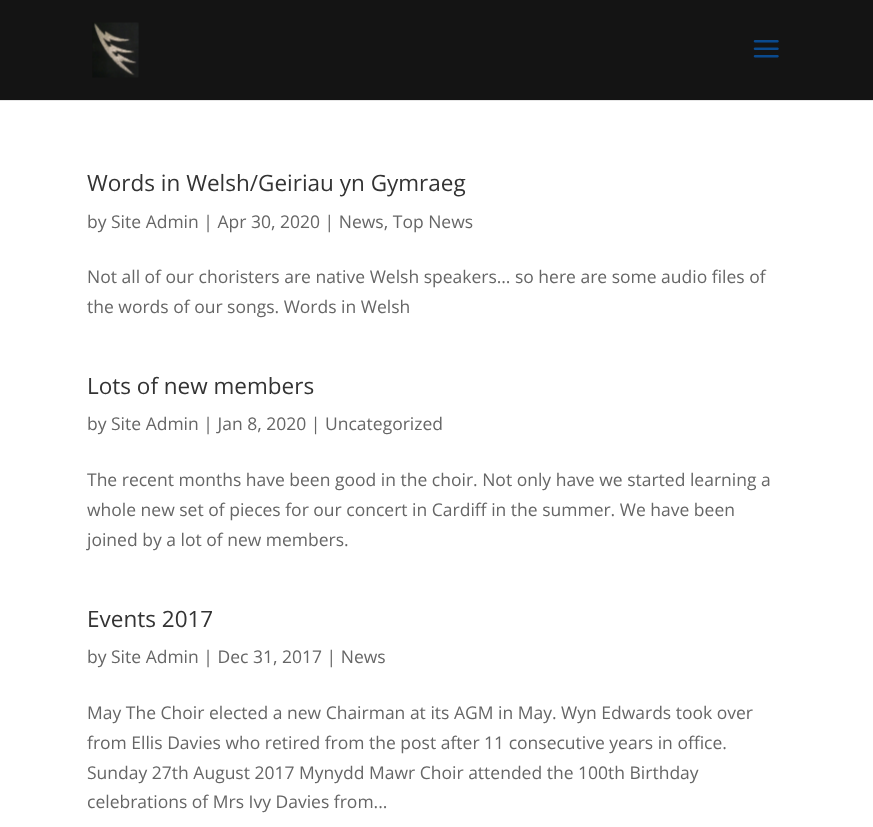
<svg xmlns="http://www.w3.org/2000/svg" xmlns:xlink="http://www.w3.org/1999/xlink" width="873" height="827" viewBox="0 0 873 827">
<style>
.cls-1{font:22.5px Open Sans;fill:#333333}
.cls-2{font:17.5px Open Sans;fill:#666666}
</style>
<rect width="100%" height="100%" fill="#ffffff"/>
<path fill="#e6e6e6" d="M0 100V101H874V1V100Z"/>
<rect fill="#141414" x="0" y="0" width="873" height="100"/>
<image xlink:href="image0.png" x="92" y="22" width="47" height="56"/>
<image xlink:href="image1.png" x="753" y="40" width="26" height="18"/>
<text class="cls-1" x="87" y="191">Words in Welsh/Geiriau yn Gymraeg</text>
<text class="cls-2" x="87" y="228">by Site Admin | Apr 30, 2020 | News, Top News</text>
<text class="cls-2"><tspan x="87" y="283">Not all of our choristers are native Welsh speakers… so here are some audio files of</tspan><tspan x="87" y="313">the words of our songs. Words in Welsh</tspan></text>
<text class="cls-1" x="87" y="394">Lots of new members</text>
<text class="cls-2" x="87" y="430">by Site Admin | Jan 8, 2020 | Uncategorized</text>
<text class="cls-2"><tspan x="87" y="486">The recent months have been good in the choir. Not only have we started learning a</tspan><tspan x="87" y="516">whole new set of pieces for our concert in Cardiff in the summer. We have been</tspan><tspan x="87" y="546">joined by a lot of new members.</tspan></text>
<text class="cls-1" x="87" y="627">Events 2017</text>
<text class="cls-2" x="87" y="663">by Site Admin | Dec 31, 2017 | News</text>
<text class="cls-2"><tspan x="87" y="719">May The Choir elected a new Chairman at its AGM in May. Wyn Edwards took over</tspan><tspan x="87" y="749">from Ellis Davies who retired from the post after 11 consecutive years in office.</tspan><tspan x="87" y="779">Sunday 27th August 2017 Mynydd Mawr Choir attended the 100th Birthday</tspan><tspan x="87" y="808">celebrations of Mrs Ivy Davies from...</tspan></text>
</svg>
